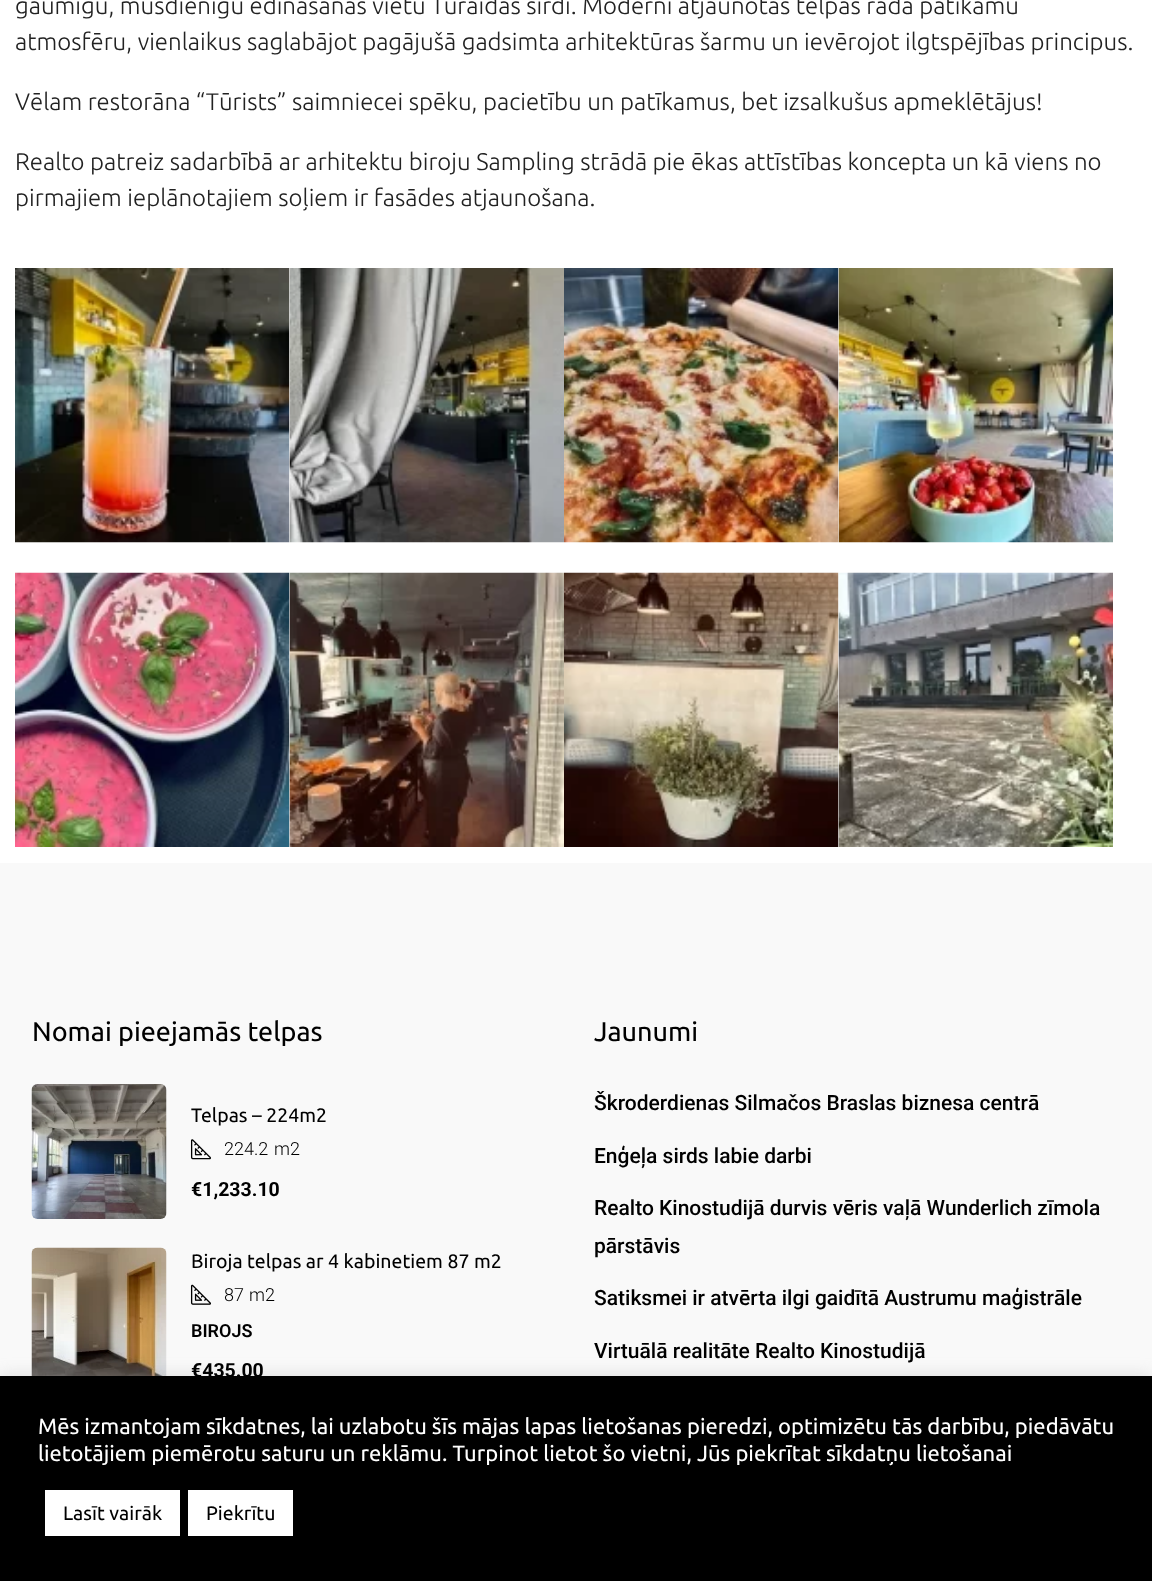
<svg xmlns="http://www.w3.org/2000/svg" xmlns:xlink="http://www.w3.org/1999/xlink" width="1152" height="1581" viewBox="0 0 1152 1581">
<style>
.cls-1{font:300 24px Ubuntu;fill:#222222}
.cls-2{font:27px Ubuntu;fill:#000000}
.cls-3{font:19.5px Ubuntu;fill:#000000}
.cls-4{font:300 18px Roboto;fill:#000000}
.cls-5{font:bold 19.5px Roboto;fill:#000000}
.cls-6{font:600 18px Roboto;fill:#000000}
.cls-7{font:500 21px Roboto;fill:#000000}
.cls-8{font:22px Ubuntu;fill:#ffffff}
</style>
<rect width="100%" height="100%" fill="#ffffff"/>
<image xlink:href="image0.png" x="15" y="268" width="275" height="275"/>
<image xlink:href="image1.png" x="289" y="268" width="275" height="275"/>
<image xlink:href="image2.png" x="564" y="268" width="275" height="275"/>
<image xlink:href="image3.png" x="838" y="268" width="275" height="275"/>
<image xlink:href="image4.png" x="15" y="572" width="275" height="275"/>
<image xlink:href="image5.png" x="289" y="572" width="275" height="275"/>
<image xlink:href="image6.png" x="564" y="572" width="275" height="275"/>
<image xlink:href="image7.png" x="838" y="572" width="275" height="275"/>
<rect fill="#f9f9f9" x="0" y="863" width="1152" height="513"/>
<image xlink:href="image8.png" x="31" y="1084" width="136" height="135"/>
<image xlink:href="image9.png" x="190" y="1139" width="21" height="21"/>
<image xlink:href="image10.png" x="31" y="1247" width="136" height="129"/>
<image xlink:href="image11.png" x="190" y="1284" width="21" height="21"/>
<rect fill="#acabab" fill-opacity="0.3" filter="blur(7.5px)" x="0" y="1374" width="1152" height="206"/>
<rect fill="#000000" x="0" y="1376" width="1152" height="205"/>
<rect fill="#ffffff" x="45" y="1490" width="135" height="46"/>
<rect fill="#ffffff" x="188" y="1490" width="105" height="46"/>
<text class="cls-1"><tspan x="15" y="14">gaumīgu, mūsdienīgu ēdināšanas vietu Turaidas sirdī. Moderni atjaunotas telpas rada patīkamu</tspan><tspan x="15" y="50">atmosfēru, vienlaikus saglabājot pagājušā gadsimta arhitektūras šarmu un ievērojot ilgtspējības principus.</tspan></text>
<text class="cls-1" x="15" y="110">Vēlam restorāna “Tūrists” saimniecei spēku, pacietību un patīkamus, bet izsalkušus apmeklētājus!</text>
<text class="cls-1"><tspan x="15" y="170">Realto patreiz sadarbībā ar arhitektu biroju Sampling strādā pie ēkas attīstības koncepta un kā viens no</tspan><tspan x="15" y="206">pirmajiem ieplānotajiem soļiem ir fasādes atjaunošana.</tspan></text>
<text class="cls-2" x="32" y="1041">Nomai pieejamās telpas</text>
<text class="cls-3" x="191" y="1122">Telpas – 224m2</text>
<text class="cls-4" x="224" y="1155">224.2</text>
<text class="cls-4" x="274" y="1155">m2</text>
<text class="cls-5" x="191" y="1196">€1,233.10</text>
<text class="cls-3" x="191" y="1268">Biroja telpas ar 4 kabinetiem 87 m2</text>
<text class="cls-4" x="224" y="1301">87</text>
<text class="cls-4" x="249" y="1301">m2</text>
<text class="cls-6" x="191" y="1337">BIROJS</text>
<text class="cls-5" x="191" y="1377">€435.00</text>
<text class="cls-2" x="594" y="1041">Jaunumi</text>
<text class="cls-7" x="594" y="1110">Škroderdienas Silmačos Braslas biznesa centrā</text>
<text class="cls-7" x="594" y="1163">Enģeļa sirds labie darbi</text>
<text class="cls-7"><tspan x="594" y="1215">Realto Kinostudijā durvis vēris vaļā Wunderlich zīmola</tspan><tspan x="594" y="1253">pārstāvis</tspan></text>
<text class="cls-7" x="594" y="1305">Satiksmei ir atvērta ilgi gaidītā Austrumu maģistrāle</text>
<text class="cls-7" x="594" y="1358">Virtuālā realitāte Realto Kinostudijā</text>
<text class="cls-8"><tspan x="38" y="1434">Mēs izmantojam sīkdatnes, lai uzlabotu šīs mājas lapas lietošanas pieredzi, optimizētu tās darbību, piedāvātu</tspan><tspan x="38" y="1461">lietotājiem piemērotu saturu un reklāmu. Turpinot lietot šo vietni, Jūs piekrītat sīkdatņu lietošanai</tspan></text>
<text class="cls-3" x="63" y="1520">Lasīt vairāk</text>
<text class="cls-3" x="206" y="1520">Piekrītu</text>
</svg>
